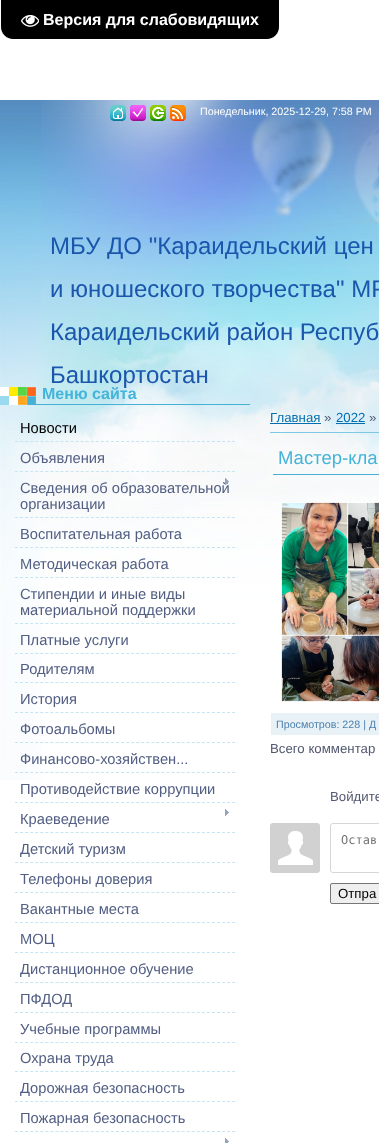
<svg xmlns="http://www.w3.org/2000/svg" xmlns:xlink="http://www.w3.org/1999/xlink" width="379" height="1143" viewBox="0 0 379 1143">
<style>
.cls-1{font:bold 16px Liberation Sans;fill:#ffffff}
.cls-2{font:10.7px Liberation Sans;fill:#ffffff}
.cls-3{font:24px Liberation Sans;fill:#1a56ac}
.cls-4{font:bold 16px Liberation Sans;fill:#44b4da}
.cls-5{font:14.7px Liberation Sans;fill:#000000}
.cls-6{font:14.7px Liberation Sans;fill:#525e83}
.cls-7{font:13.25px Liberation Sans;fill:#006fb2}
.cls-8{font:13.25px Liberation Sans;fill:#52596f}
.cls-9{font:18.5px Liberation Sans;fill:#44b4da}
.cls-10{font:10.7px Liberation Sans;fill:#4e81af}
.cls-11{font:12px DejaVu Sans Mono;fill:#757575}
.cls-12{font:13.25px Liberation Sans;fill:#000000}
</style>
<rect width="100%" height="100%" fill="#ffffff"/>
<path fill="#000000" d="M1 0H279V27C279 33.5 273.5 39 267 39H13C6.5 39 1 33.5 1 27Z"/>
<image xlink:href="image0.png" x="21" y="14" width="18" height="13"/>
<image xlink:href="image1.png" x="0" y="100" width="379" height="680"/>
<image xlink:href="image2.png" x="110" y="105" width="16" height="16"/>
<image xlink:href="image3.png" x="130" y="105" width="16" height="16"/>
<image xlink:href="image4.png" x="150" y="105" width="16" height="16"/>
<image xlink:href="image5.png" x="170" y="105" width="16" height="16"/>
<image xlink:href="image6.png" x="0" y="387" width="250" height="18"/>
<path fill="none" stroke="#c5e5f5" stroke-dasharray="3 2.05" d="M15 441.5H235"/>
<path fill="none" stroke="#c5e5f5" stroke-dasharray="3 2.05" d="M15 471.5H235"/>
<path fill="none" stroke="#c5e5f5" stroke-dasharray="3 2.05" d="M15 517.5H235"/>
<path fill="none" stroke="#c5e5f5" stroke-dasharray="3 2.05" d="M15 547.5H235"/>
<path fill="none" stroke="#c5e5f5" stroke-dasharray="3 2.05" d="M15 577.5H235"/>
<path fill="none" stroke="#c5e5f5" stroke-dasharray="3 2.05" d="M15 623.5H235"/>
<path fill="none" stroke="#c5e5f5" stroke-dasharray="3 2.05" d="M15 653.5H235"/>
<path fill="none" stroke="#c5e5f5" stroke-dasharray="3 2.05" d="M15 682.5H235"/>
<path fill="none" stroke="#c5e5f5" stroke-dasharray="3 2.05" d="M15 712.5H235"/>
<path fill="none" stroke="#c5e5f5" stroke-dasharray="3 2.05" d="M15 742.5H235"/>
<path fill="none" stroke="#c5e5f5" stroke-dasharray="3 2.05" d="M15 772.5H235"/>
<path fill="none" stroke="#c5e5f5" stroke-dasharray="3 2.05" d="M15 802.5H235"/>
<path fill="none" stroke="#c5e5f5" stroke-dasharray="3 2.05" d="M15 832.5H235"/>
<image xlink:href="image8.png" x="225" y="809" width="4" height="7"/>
<path fill="none" stroke="#c5e5f5" stroke-dasharray="3 2.05" d="M15 862.5H235"/>
<path fill="none" stroke="#c5e5f5" stroke-dasharray="3 2.05" d="M15 892.5H235"/>
<path fill="none" stroke="#c5e5f5" stroke-dasharray="3 2.05" d="M15 922.5H235"/>
<path fill="none" stroke="#c5e5f5" stroke-dasharray="3 2.05" d="M15 952.5H235"/>
<path fill="none" stroke="#c5e5f5" stroke-dasharray="3 2.05" d="M15 982.5H235"/>
<path fill="none" stroke="#c5e5f5" stroke-dasharray="3 2.05" d="M15 1012.5H235"/>
<path fill="none" stroke="#c5e5f5" stroke-dasharray="3 2.05" d="M15 1042.5H235"/>
<path fill="none" stroke="#c5e5f5" stroke-dasharray="3 2.05" d="M15 1071.5H235"/>
<path fill="none" stroke="#c5e5f5" stroke-dasharray="3 2.05" d="M15 1101.5H235"/>
<path fill="none" stroke="#c5e5f5" stroke-dasharray="3 2.05" d="M15 1131.5H235"/>
<image xlink:href="image9.png" x="225" y="1138" width="4" height="5"/>
<rect fill="#006fb2" x="270" y="423" width="51" height="1"/>
<rect fill="#006fb2" x="336" y="423" width="29" height="1"/>
<rect fill="#7ec8e3" x="270" y="432" width="109" height="1"/>
<rect fill="#46b1d5" x="273" y="474" width="106" height="1"/>
<image xlink:href="image10.png" x="281" y="502" width="98" height="200"/>
<rect fill="#e8f2f6" x="271" y="713" width="108" height="22"/>
<image xlink:href="image11.png" x="270" y="823" width="50" height="50"/>
<rect fill="none" stroke="#d6d6d6" x="330.5" y="823.5" width="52" height="49" rx="2.5"/>
<rect fill="#efefef" stroke="#767676" x="330.5" y="883.5" width="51" height="20" rx="1.5"/>
<text class="cls-1" x="43" y="25">Версия для слабовидящих</text>
<text class="cls-2" x="200" y="115">Понедельник, 2025-12-29, 7:58 PM</text>
<text class="cls-3"><tspan x="50" y="254">МБУ ДО "Караидельский цен</tspan><tspan x="50" y="297">и юношеского творчества" МР</tspan><tspan x="50" y="340">Караидельский район Респуб</tspan><tspan x="50" y="383">Башкортостан</tspan></text>
<text class="cls-4" x="42" y="399">Меню сайта</text>
<text class="cls-5" x="20" y="433">Новости</text>
<text class="cls-6" x="20" y="463">Объявления</text>
<text class="cls-6" x="20" y="493">Сведения об образовательной</text>
<image xlink:href="image7.png" x="225" y="478" width="4" height="7"/>
<text class="cls-6" x="20" y="509">организации</text>
<text class="cls-6" x="20" y="539">Воспитательная работа</text>
<text class="cls-6" x="20" y="569">Методическая работа</text>
<text class="cls-6"><tspan x="20" y="599">Стипендии и иные виды</tspan><tspan x="20" y="615">материальной поддержки</tspan></text>
<text class="cls-6"><tspan x="20" y="645">Платные услуги</tspan><tspan x="20" y="674">Родителям</tspan></text>
<text class="cls-6" x="20" y="704">История</text>
<text class="cls-6" x="20" y="734">Фотоальбомы</text>
<text class="cls-6" x="20" y="764">Финансово-хозяйствен...</text>
<text class="cls-6" x="20" y="794">Противодействие коррупции</text>
<text class="cls-6" x="20" y="824">Краеведение</text>
<text class="cls-6" x="20" y="854">Детский туризм</text>
<text class="cls-6" x="20" y="884">Телефоны доверия</text>
<text class="cls-6" x="20" y="914">Вакантные места</text>
<text class="cls-6" x="20" y="944">МОЦ</text>
<text class="cls-6" x="20" y="974">Дистанционное обучение</text>
<text class="cls-6" x="20" y="1004">ПФДОД</text>
<text class="cls-6"><tspan x="20" y="1034">Учебные программы</tspan><tspan x="20" y="1063">Охрана труда</tspan></text>
<text class="cls-6" x="20" y="1093">Дорожная безопасность</text>
<text class="cls-6" x="20" y="1123">Пожарная безопасность</text>
<text class="cls-7" x="270" y="422">Главная</text>
<text class="cls-8" x="324" y="422">»</text>
<text class="cls-7" x="336" y="422">2022</text>
<text class="cls-8" x="369" y="422">»</text>
<text class="cls-9" x="278" y="464">Мастер-кла</text>
<text class="cls-10" x="276" y="728">Просмотров: 228 | Д</text>
<text class="cls-8" x="270" y="753">Всего комментар</text>
<text class="cls-8" x="330" y="801">Войдите</text>
<text class="cls-11" x="341" y="844">Остав</text>
<text class="cls-12" x="338" y="898">Отпра</text>
</svg>
